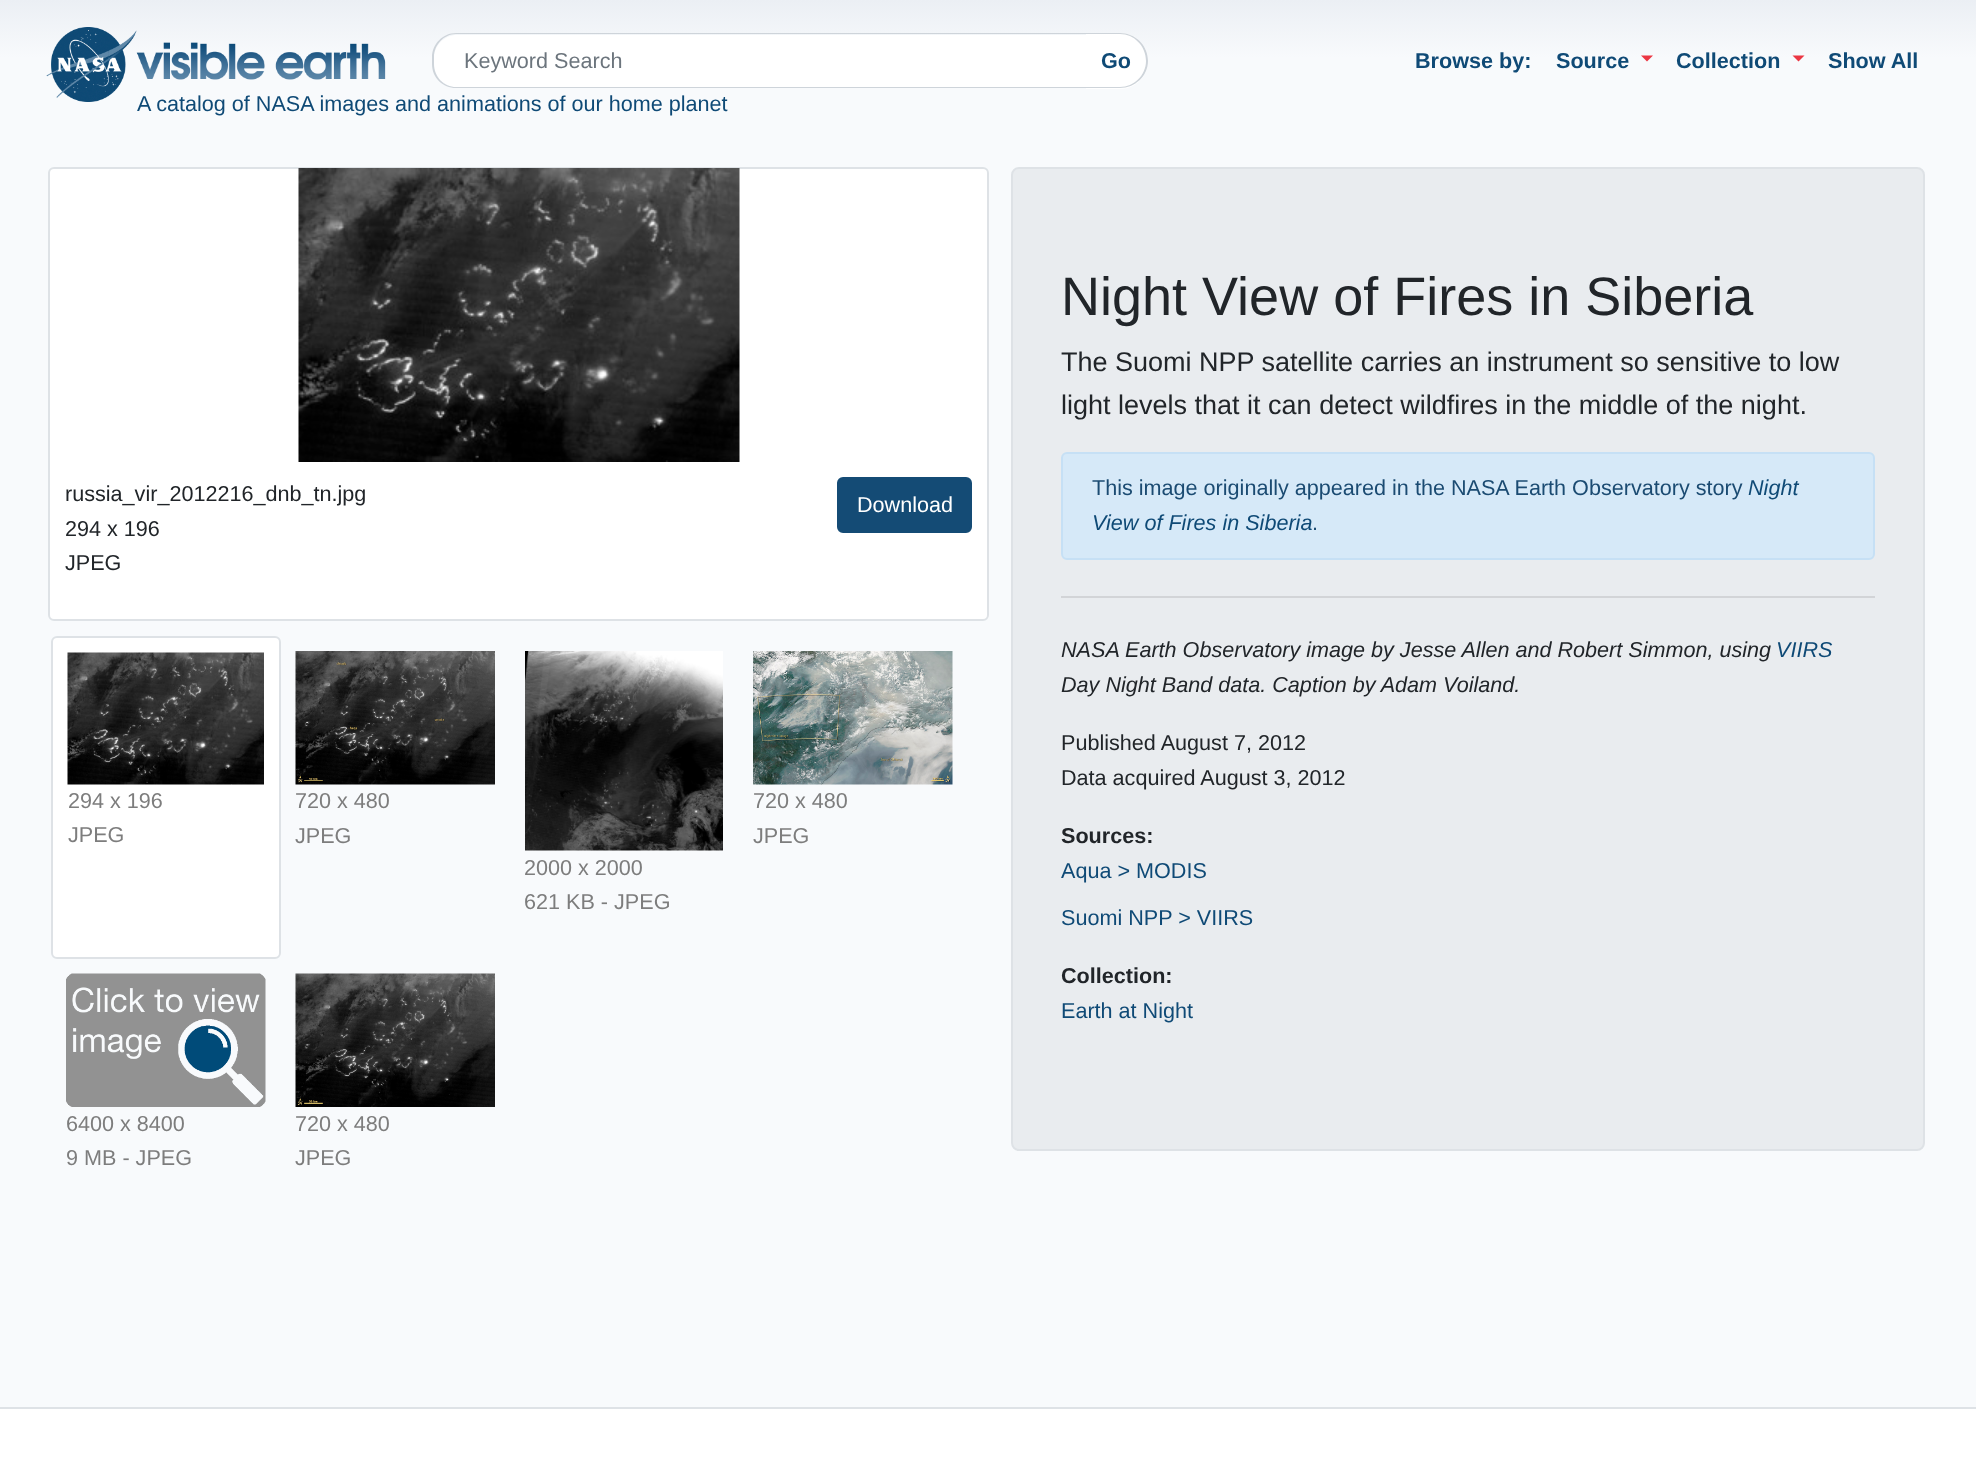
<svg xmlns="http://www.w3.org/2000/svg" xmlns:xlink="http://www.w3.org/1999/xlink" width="1976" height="1470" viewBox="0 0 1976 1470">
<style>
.cls-1{font:21.6px Liberation Sans;fill:#6c757d}
.cls-2{font:bold 21.6px Liberation Sans;fill:#0f4a76}
.cls-3{font:21.6px Liberation Sans;fill:#0f4a76}
.cls-4{font:21.6px Liberation Sans;fill:#212529}
.cls-5{font:21.6px Liberation Sans;fill:#ffffff}
.cls-6{font:21.6px Liberation Sans;fill:#7d7d7d}
.cls-7{font:54px Liberation Sans;fill:#212529}
.cls-8{font:27px Liberation Sans;fill:#212529}
.cls-9{font:21.6px Liberation Sans;fill:#1b4b72}
.cls-10{font:italic 21.6px Liberation Sans;fill:#0f4a76}
.cls-11{font:italic 21.6px Liberation Sans;fill:#212529}
.cls-12{font:bold 21.6px Liberation Sans;fill:#212529}
</style>
<defs>
<linearGradient id="g1" gradientUnits="userSpaceOnUse" x1="989" y1="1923" x2="989" y2="0"><stop offset="0.8" stop-color="#f8fafc"/><stop offset="0.97" stop-color="#f8fafc"/><stop offset="1" stop-color="#ebeff4"/></linearGradient>
</defs>
<rect width="100%" height="100%" fill="#ffffff"/>
<rect fill="url(#g1)" x="0" y="0" width="1976" height="1407"/>
<path fill="#ffffff" d="M457 35H1086V87H457C444.5 87 434 76.5 434 64V58C434 45.5 444.5 35 457 35Z"/>
<path fill="#ced4da" fill-rule="evenodd" d="M456 33H1086V88H456C443 88 432 78 432 64V57C432 44 443 33 456 33ZM456 34H1086V87H456C444 87 434 77 434 64V57C434 45 444 34 456 34Z"/>
<path fill="#ffffff" d="M1086 33H1120C1135.5 33 1148 45.5 1148 61C1148 76.5 1135.5 89 1120 89H1086Z"/>
<path fill="#ced4da" fill-rule="evenodd" d="M1086 33H1120C1135 33 1148 45 1148 61C1148 76 1135 88 1120 88H1086ZM1086 34H1120C1134 34 1146 46 1146 61C1146 75 1134 87 1120 87H1086Z"/>
<path fill="#eb3642" d="M1641 55.5H1653L1647 61.5Z"/>
<path fill="#eb3642" d="M1792.5 55.5H1804.5L1798.5 61.5Z"/>
<image xlink:href="image0.png" x="46" y="27" width="91" height="75"/>
<image xlink:href="image1.png" x="136" y="42" width="250" height="38"/>
<rect fill="#ffffff" stroke="#dee2e6" stroke-width="2" x="49" y="168" width="939" height="452" rx="5"/>
<image xlink:href="image2.png" x="298" y="168" width="442" height="294"/>
<rect fill="#144b75" stroke="#144b75" stroke-width="2" x="838" y="478" width="133" height="54" rx="5"/>
<rect fill="#ffffff" stroke="#dee2e6" stroke-width="2" x="52" y="637" width="228" height="321" rx="5"/>
<image xlink:href="image3.png" x="67" y="652" width="197" height="133"/>
<image xlink:href="image4.png" x="295" y="651" width="200" height="134"/>
<image xlink:href="image5.png" x="753" y="651" width="200" height="134"/>
<image xlink:href="image6.png" x="525" y="651" width="198" height="200"/>
<image xlink:href="image7.png" x="66" y="973" width="200" height="134"/>
<image xlink:href="image8.png" x="295" y="973" width="200" height="134"/>
<rect fill="#e9ecef" stroke="#dee2e6" stroke-width="2" x="1012" y="168" width="912" height="982" rx="7"/>
<rect fill="#d6e9f8" stroke="#c6e0f5" stroke-width="2" x="1062" y="453" width="812" height="106" rx="5"/>
<rect fill="#d2d4d7" x="1061" y="596" width="814" height="2"/>
<rect fill="#dee2e6" x="0" y="1407" width="1976" height="2"/>
<text class="cls-1" x="464" y="68">Keyword Search</text>
<text class="cls-2" x="1101" y="68">Go</text>
<text class="cls-2" x="1415" y="68">Browse by:</text>
<text class="cls-2" x="1556" y="68">Source</text>
<text class="cls-2" x="1676" y="68">Collection</text>
<text class="cls-2" x="1828" y="68">Show All</text>
<text class="cls-3" x="137" y="111">A catalog of NASA images and animations of our home planet</text>
<text class="cls-4"><tspan x="65" y="501">russia_vir_2012216_dnb_tn.jpg</tspan><tspan x="65" y="536">294 x 196</tspan><tspan x="65" y="570">JPEG</tspan></text>
<text class="cls-5" x="857" y="512">Download</text>
<text class="cls-6"><tspan x="68" y="808">294 x 196</tspan><tspan x="68" y="842">JPEG</tspan></text>
<text class="cls-6"><tspan x="295" y="808">720 x 480</tspan><tspan x="295" y="843">JPEG</tspan></text>
<text class="cls-6"><tspan x="753" y="808">720 x 480</tspan><tspan x="753" y="843">JPEG</tspan></text>
<text class="cls-6"><tspan x="524" y="875">2000 x 2000</tspan><tspan x="524" y="909">621 KB - JPEG</tspan></text>
<text class="cls-6"><tspan x="66" y="1131">6400 x 8400</tspan><tspan x="66" y="1165">9 MB - JPEG</tspan></text>
<text class="cls-6"><tspan x="295" y="1131">720 x 480</tspan><tspan x="295" y="1165">JPEG</tspan></text>
<text class="cls-7" x="1061" y="315">Night View of Fires in Siberia</text>
<text class="cls-8"><tspan x="1061" y="371">The Suomi NPP satellite carries an instrument so sensitive to low</tspan><tspan x="1061" y="414">light levels that it can detect wildfires in the middle of the night.</tspan></text>
<text class="cls-9" x="1092" y="495">This image originally appeared in the NASA Earth Observatory story</text>
<text class="cls-10" x="1748" y="495">Night</text>
<text class="cls-10" x="1092" y="530">View of Fires in Siberia</text>
<text class="cls-9" x="1312" y="530">.</text>
<text class="cls-11" x="1061" y="657">NASA Earth Observatory image by Jesse Allen and Robert Simmon, using</text>
<text class="cls-10" x="1776" y="657">VIIRS</text>
<text class="cls-11" x="1061" y="692">Day Night Band data. Caption by Adam Voiland.</text>
<text class="cls-4"><tspan x="1061" y="750">Published August 7, 2012</tspan><tspan x="1061" y="785">Data acquired August 3, 2012</tspan></text>
<text class="cls-12" x="1061" y="843">Sources:</text>
<text class="cls-3" x="1061" y="878">Aqua &gt; MODIS</text>
<text class="cls-3" x="1061" y="925">Suomi NPP &gt; VIIRS</text>
<text class="cls-12" x="1061" y="983">Collection:</text>
<text class="cls-3" x="1061" y="1018">Earth at Night</text>
</svg>
